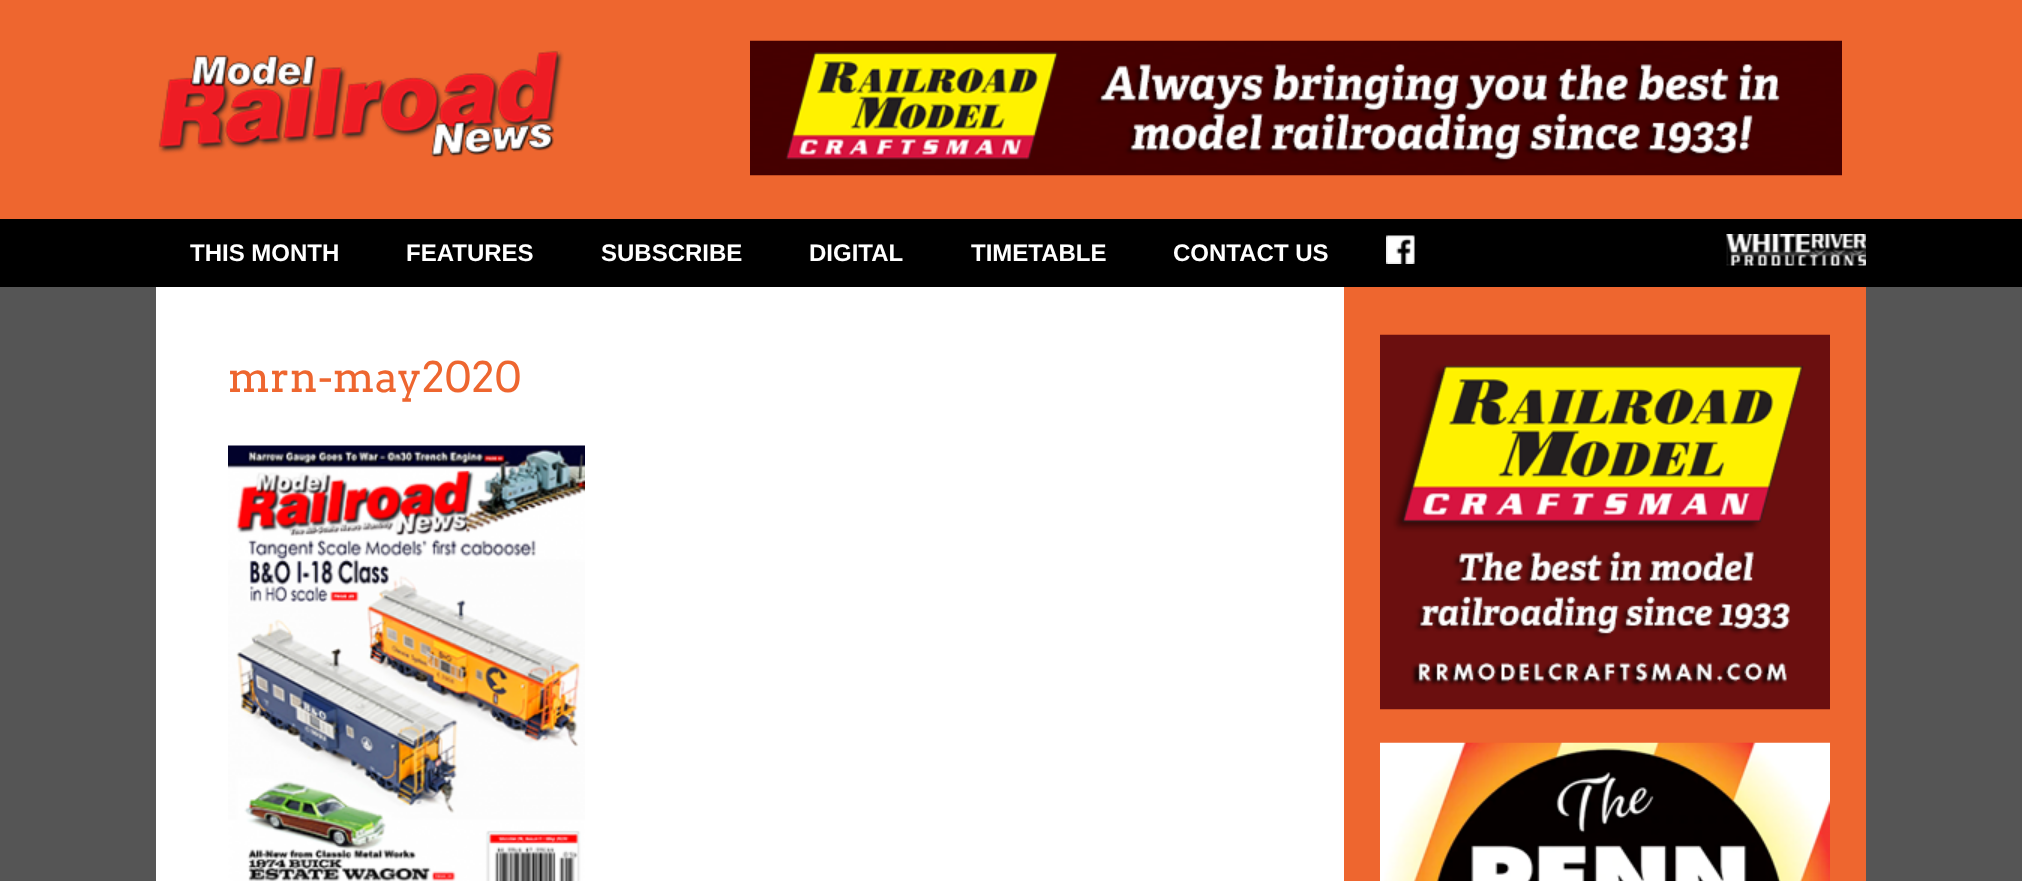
<svg xmlns="http://www.w3.org/2000/svg" xmlns:xlink="http://www.w3.org/1999/xlink" width="2022" height="881" viewBox="0 0 2022 881">
<style>
.cls-1{font:bold 24px Liberation Sans;fill:#ffffff}
.cls-2{font:42px Arvo;fill:#ee662f}
</style>
<rect width="100%" height="100%" fill="#555555"/>
<rect fill="#ee662f" x="0" y="0" width="2022" height="219"/>
<image xlink:href="image0.png" x="158" y="50" width="406" height="108"/>
<image xlink:href="image1.png" x="750" y="40" width="1092" height="136"/>
<rect fill="#000000" x="0" y="219" width="2022" height="68"/>
<image xlink:href="image2.png" x="1386" y="235" width="29" height="29"/>
<image xlink:href="image3.png" x="1726" y="234" width="140" height="32"/>
<rect fill="#ee662f" x="1344" y="287" width="522" height="594"/>
<rect fill="#ffffff" x="156" y="287" width="1188" height="594"/>
<image xlink:href="image4.png" x="228" y="445" width="357" height="436"/>
<image xlink:href="image5.png" x="1380" y="334" width="450" height="376"/>
<image xlink:href="image6.png" x="1380" y="742" width="450" height="139"/>
<text class="cls-1" x="190" y="261">THIS MONTH</text>
<text class="cls-1" x="406" y="261">FEATURES</text>
<text class="cls-1" x="601" y="261">SUBSCRIBE</text>
<text class="cls-1" x="809" y="261">DIGITAL</text>
<text class="cls-1" x="971" y="261">TIMETABLE</text>
<text class="cls-1" x="1173" y="261">CONTACT US</text>
<text class="cls-2" x="228" y="392">mrn-may2020</text>
</svg>
